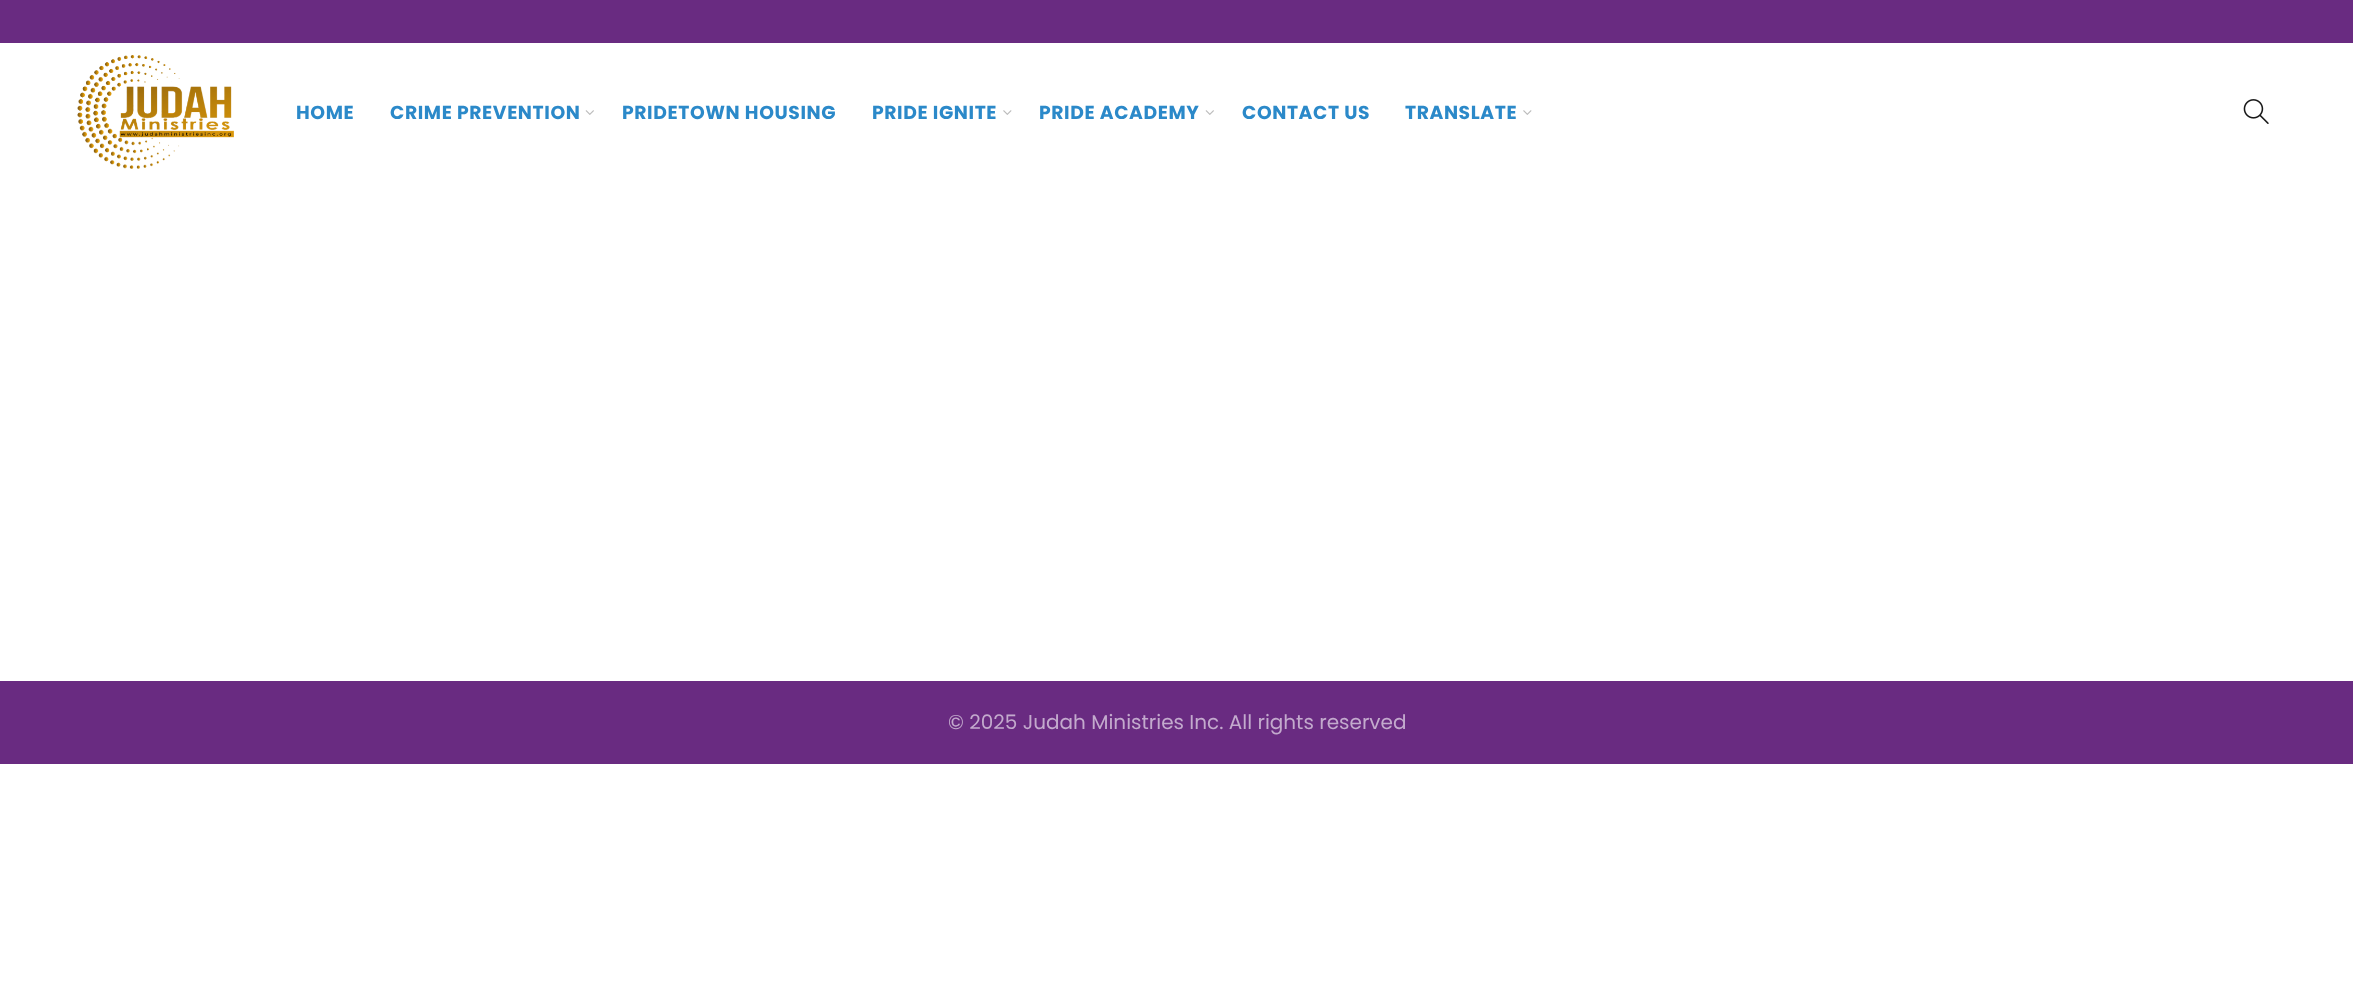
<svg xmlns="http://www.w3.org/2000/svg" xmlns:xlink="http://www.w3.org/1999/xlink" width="2353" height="1002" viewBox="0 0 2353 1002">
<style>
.cls-1{font:bold 18.75px Poppins;letter-spacing:0.6px;fill:#2b89c9}
.cls-2{font:20px Poppins;fill:#c3aacd}
</style>
<rect width="100%" height="100%" fill="#ffffff"/>
<rect fill="#692b81" x="0" y="0" width="2353" height="43"/>
<image xlink:href="image0.png" x="77" y="55" width="157" height="114"/>
<image xlink:href="image1.png" x="585" y="110" width="9" height="5"/>
<image xlink:href="image2.png" x="1003" y="110" width="9" height="5"/>
<image xlink:href="image1.png" x="1205" y="110" width="9" height="5"/>
<image xlink:href="image2.png" x="1523" y="110" width="9" height="5"/>
<image xlink:href="image3.png" x="2243" y="99" width="26" height="25"/>
<rect fill="#692b81" x="0" y="681" width="2353" height="83"/>
<text class="cls-1" x="296" y="119">HOME</text>
<text class="cls-1" x="390" y="119">CRIME PREVENTION</text>
<text class="cls-1" x="622" y="119">PRIDETOWN HOUSING</text>
<text class="cls-1" x="872" y="119">PRIDE IGNITE</text>
<text class="cls-1" x="1039" y="119">PRIDE ACADEMY</text>
<text class="cls-1" x="1242" y="119">CONTACT US</text>
<text class="cls-1" x="1405" y="119">TRANSLATE</text>
<text class="cls-2" x="948" y="729">© 2025 Judah Ministries Inc. All rights reserved</text>
</svg>
